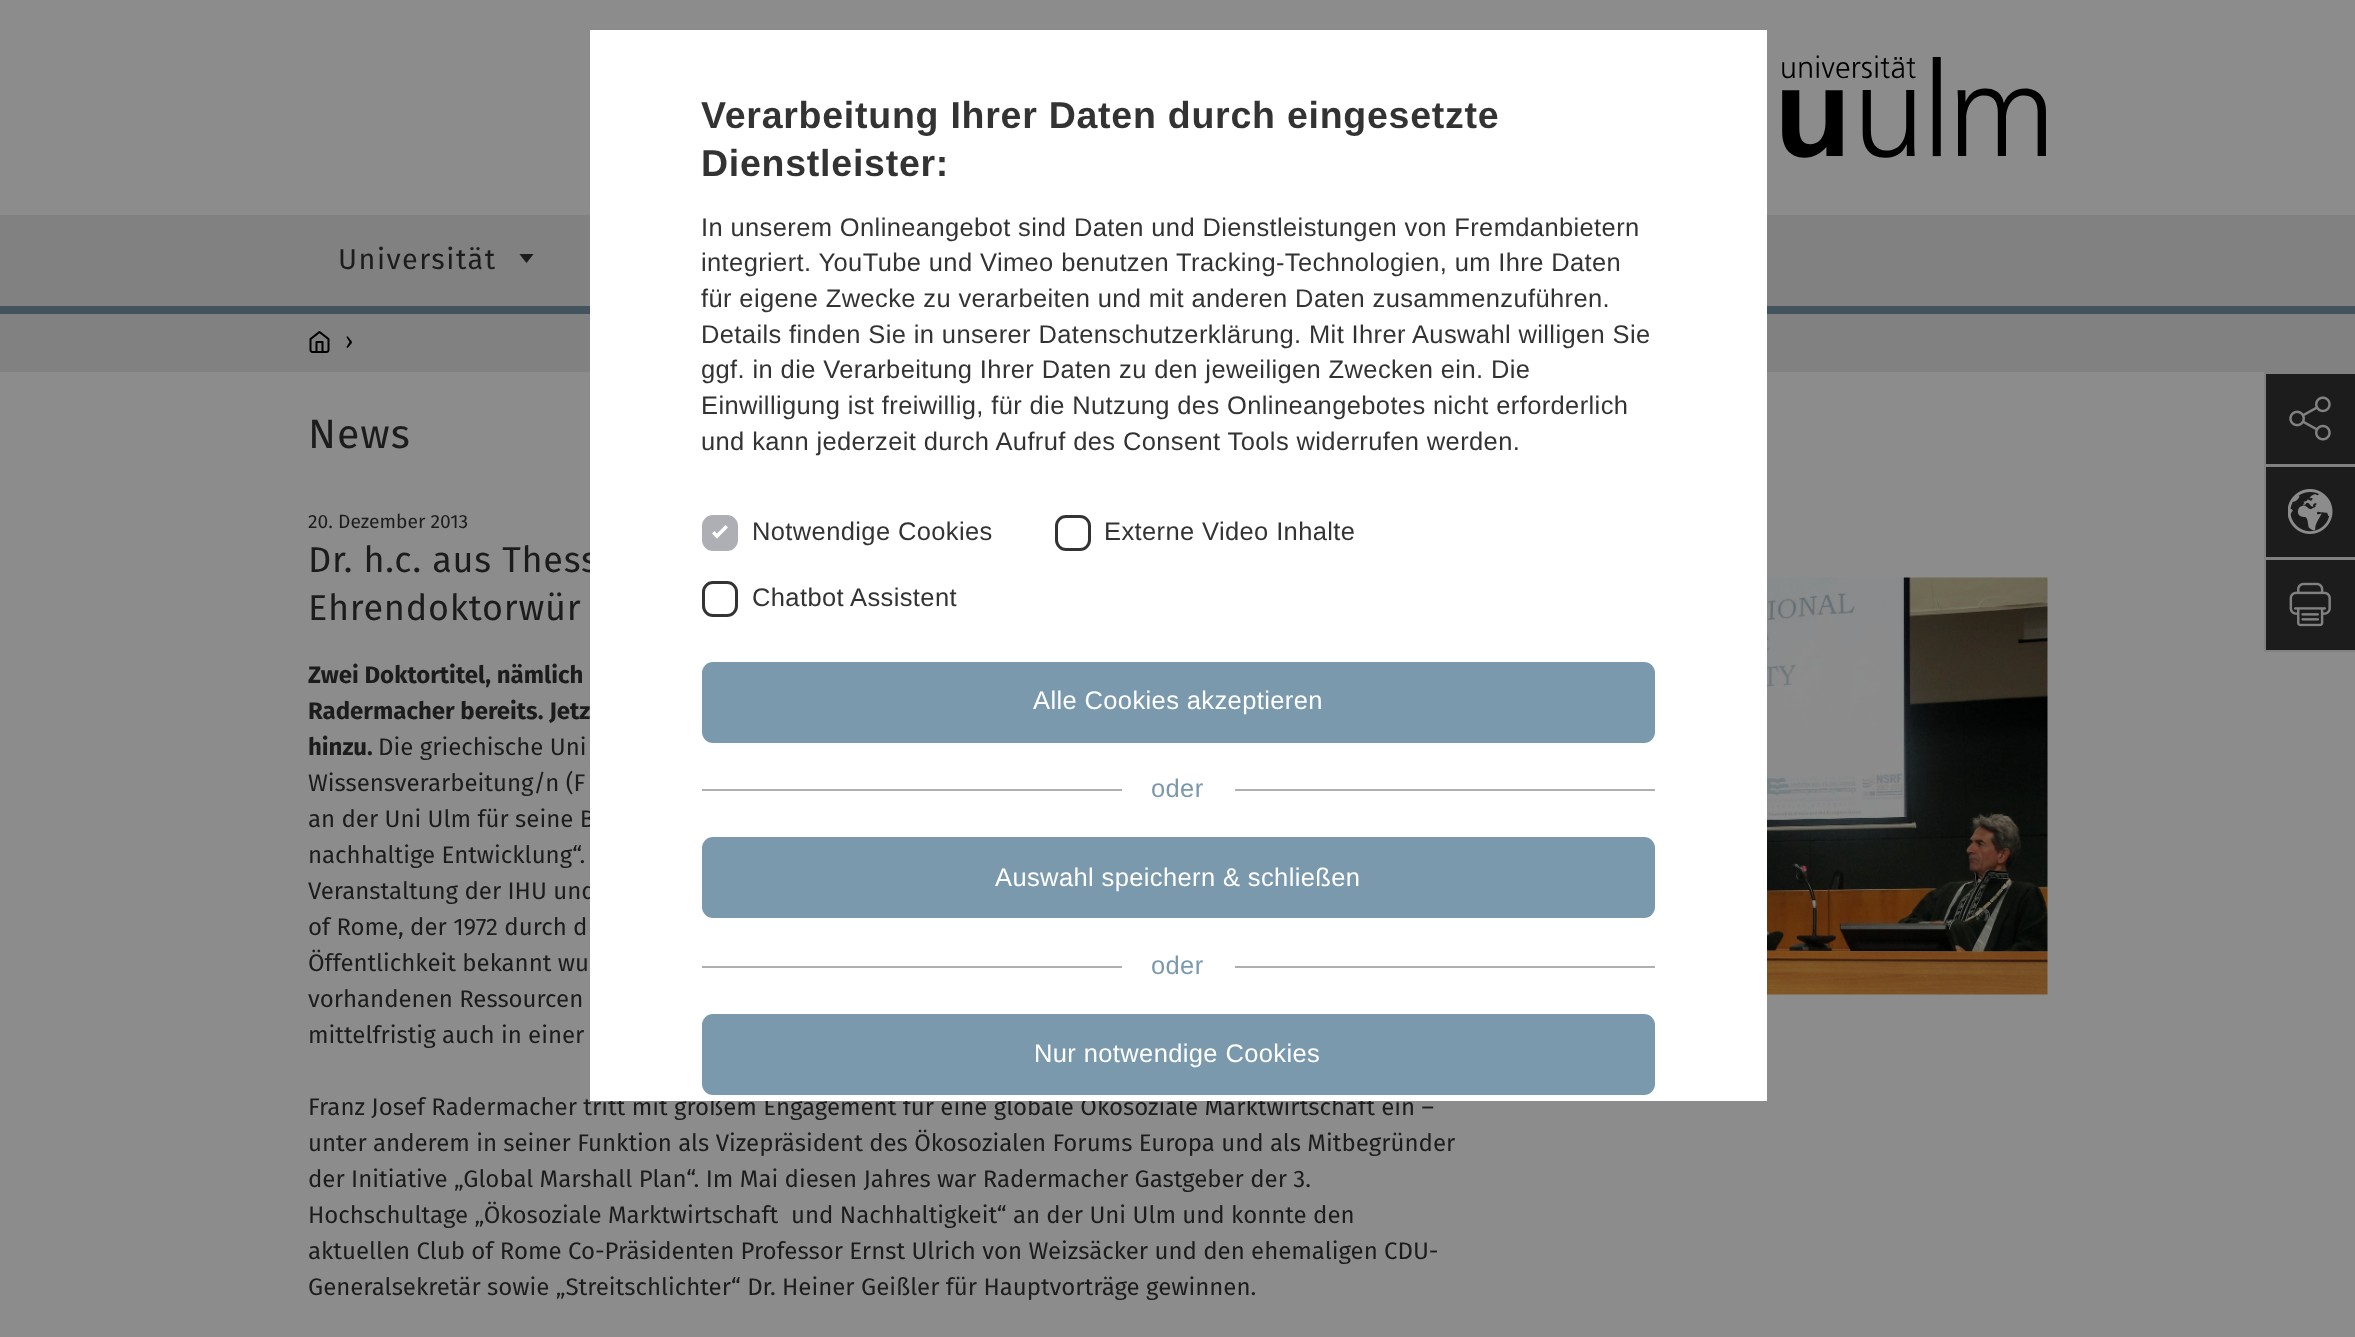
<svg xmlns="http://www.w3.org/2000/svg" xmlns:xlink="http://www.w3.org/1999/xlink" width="2355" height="1337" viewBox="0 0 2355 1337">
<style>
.cls-1{font:28.75px Fira Sans;letter-spacing:1.5px;fill:#1c1c1c}
.cls-2{font:24px Fira Sans;fill:#000000}
.cls-3{font:41px Fira Sans;letter-spacing:1px;fill:#1c1c1c}
.cls-4{font:19.25px Fira Sans;fill:#1c1c1c}
.cls-5{font:36px Fira Sans;letter-spacing:0.75px;fill:#1c1c1c}
.cls-6{font:bold 24px Fira Sans;fill:#1c1c1c}
.cls-7{font:24px Fira Sans;fill:#1c1c1c}
.cls-8{font:25.5px Liberation Sans;letter-spacing:0.38px;fill:#333333}
.cls-9{font:25.5px Liberation Sans;letter-spacing:0.38px;fill:#ffffff}
.cls-10{font:25.5px Liberation Sans;letter-spacing:0.38px;fill:#7a99ac}
.cls-11{font:bold 37.5px Liberation Sans;letter-spacing:0.75px;fill:#333333}
</style>
<defs>
<clipPath id="clip1"><rect x="519" y="254" width="15" height="9"/></clipPath>
</defs>
<rect width="100%" height="100%" fill="#8c8c8c"/>
<image xlink:href="image0.png" x="1782" y="55" width="264" height="103"/>
<rect fill="#818181" x="0" y="215" width="2355" height="157"/>
<rect fill="#43545f" x="0" y="306" width="2355" height="8"/>
<g clip-path="url(#clip1)">
<path fill="#1c1c1c" d="M534 253.5L526.5 263L519 253.5Z"/>
</g>
<image xlink:href="image1.png" x="309" y="331" width="21" height="22"/>
<rect fill="#1c1c1c" x="2266" y="374" width="89" height="90"/>
<rect fill="#818181" x="2264" y="372" width="91" height="2"/>
<rect fill="#818181" x="2264" y="464" width="91" height="3"/>
<rect fill="#818181" x="2264" y="372" width="2" height="93"/>
<image xlink:href="image2.png" x="2289" y="396" width="42" height="45"/>
<rect fill="#1c1c1c" x="2266" y="467" width="89" height="90"/>
<rect fill="#818181" x="2264" y="559" width="91" height="1"/>
<rect fill="#818181" x="2264" y="650" width="91" height="2"/>
<rect fill="#818181" x="2264" y="558" width="2" height="93"/>
<rect fill="#818181" x="2264" y="557" width="91" height="2"/>
<rect fill="#818181" x="2264" y="465" width="2" height="93"/>
<image xlink:href="image3.png" x="2288" y="489" width="45" height="45"/>
<rect fill="#1c1c1c" x="2266" y="560" width="89" height="90"/>
<image xlink:href="image4.png" x="2289" y="582" width="42" height="45"/>
<image xlink:href="image5.png" x="1767" y="577" width="281" height="418"/>
<text class="cls-1" x="338" y="269">Universität</text>
<text class="cls-2" x="345" y="349">›</text>
<text class="cls-3" x="308" y="448">News</text>
<text class="cls-4" x="308" y="528">20. Dezember 2013</text>
<text class="cls-5"><tspan x="308" y="572">Dr. h.c. aus Thess</tspan><tspan x="308" y="620">Ehrendoktorwür</tspan></text>
<text class="cls-6"><tspan x="308" y="683">Zwei Doktortitel, nämlich</tspan><tspan x="308" y="719">Radermacher bereits. Jetz</tspan><tspan x="308" y="755">hinzu.</tspan></text>
<text class="cls-7" x="378" y="755">Die griechische Uni</text>
<text class="cls-7"><tspan x="308" y="791">Wissensverarbeitung/n (F</tspan><tspan x="308" y="827">an der Uni Ulm für seine B</tspan><tspan x="308" y="863">nachhaltige Entwicklung“.</tspan><tspan x="308" y="899">Veranstaltung der IHU und</tspan><tspan x="308" y="935">of Rome, der 1972 durch d</tspan><tspan x="308" y="971">Öffentlichkeit bekannt wu</tspan><tspan x="308" y="1007">vorhandenen Ressourcen</tspan><tspan x="308" y="1043">mittelfristig auch in einer</tspan></text>
<text class="cls-7" x="308" y="1115">Franz Josef Radermacher tritt mit großem Engagement für eine globale Ökosoziale Marktwirtschaft ein –</text>
<rect fill="#ffffff" x="590" y="30" width="1177" height="1071"/>
<text class="cls-8" x="752" y="606">Chatbot Assistent</text>
<rect fill="none" stroke="#333333" stroke-width="3" x="703.5" y="582.5" width="33" height="33" rx="9.5"/>
<text class="cls-8" x="1104" y="540">Externe Video Inhalte</text>
<rect fill="none" stroke="#333333" stroke-width="3" x="1056.5" y="516.5" width="33" height="33" rx="9.5"/>
<rect fill="#adafb5" stroke="#adafb5" stroke-width="3" x="703.5" y="516.5" width="33" height="33" rx="9.5"/>
<path fill="#ffffff" d="M714.5 536L725.5 525L728 527.5L717 538.5Z"/>
<path fill="#ffffff" d="M712 533.5L714.5 531L719.5 536L717 538.5Z"/>
<text class="cls-8" x="752" y="540">Notwendige Cookies</text>
<rect fill="#7a99ac" x="702" y="1014" width="953" height="81" rx="11"/>
<text class="cls-9" x="1034" y="1062">Nur notwendige Cookies</text>
<rect fill="#adafb5" x="1235" y="966" width="420" height="2"/>
<text class="cls-10" x="1151" y="974">oder</text>
<rect fill="#adafb5" x="702" y="966" width="420" height="2"/>
<rect fill="#7a99ac" x="702" y="837" width="953" height="81" rx="11"/>
<text class="cls-9" x="995" y="886">Auswahl speichern &amp; schließen</text>
<rect fill="#adafb5" x="1235" y="789" width="420" height="2"/>
<text class="cls-10" x="1151" y="797">oder</text>
<rect fill="#adafb5" x="702" y="789" width="420" height="2"/>
<rect fill="#7a99ac" x="702" y="662" width="953" height="81" rx="11"/>
<text class="cls-9" x="1033" y="709">Alle Cookies akzeptieren</text>
<text class="cls-8" x="701" y="450">und kann jederzeit durch Aufruf des Consent Tools widerrufen werden.</text>
<text class="cls-8" x="701" y="414">Einwilligung ist freiwillig, für die Nutzung des Onlineangebotes nicht erforderlich</text>
<text class="cls-8" x="701" y="378">ggf. in die Verarbeitung Ihrer Daten zu den jeweiligen Zwecken ein. Die</text>
<text class="cls-8" x="701" y="343">Details finden Sie in unserer Datenschutzerklärung. Mit Ihrer Auswahl willigen Sie</text>
<text class="cls-8" x="701" y="307">für eigene Zwecke zu verarbeiten und mit anderen Daten zusammenzuführen.</text>
<text class="cls-8" x="701" y="271">integriert. YouTube und Vimeo benutzen Tracking-Technologien, um Ihre Daten</text>
<text class="cls-8" x="701" y="236">In unserem Onlineangebot sind Daten und Dienstleistungen von Fremdanbietern</text>
<text class="cls-11" x="701" y="176">Dienstleister:</text>
<text class="cls-11" x="701" y="128">Verarbeitung Ihrer Daten durch eingesetzte</text>
<text class="cls-7"><tspan x="308" y="1151">unter anderem in seiner Funktion als Vizepräsident des Ökosozialen Forums Europa und als Mitbegründer</tspan><tspan x="308" y="1187">der Initiative „Global Marshall Plan“. Im Mai diesen Jahres war Radermacher Gastgeber der 3.</tspan><tspan x="308" y="1223">Hochschultage „Ökosoziale Marktwirtschaft</tspan></text>
<text class="cls-7" x="791" y="1223">und Nachhaltigkeit“ an der Uni Ulm und konnte den</text>
<text class="cls-7"><tspan x="308" y="1259">aktuellen Club of Rome Co-Präsidenten Professor Ernst Ulrich von Weizsäcker und den ehemaligen CDU-</tspan><tspan x="308" y="1295">Generalsekretär sowie „Streitschlichter“ Dr. Heiner Geißler für Hauptvorträge gewinnen.</tspan></text>
</svg>
